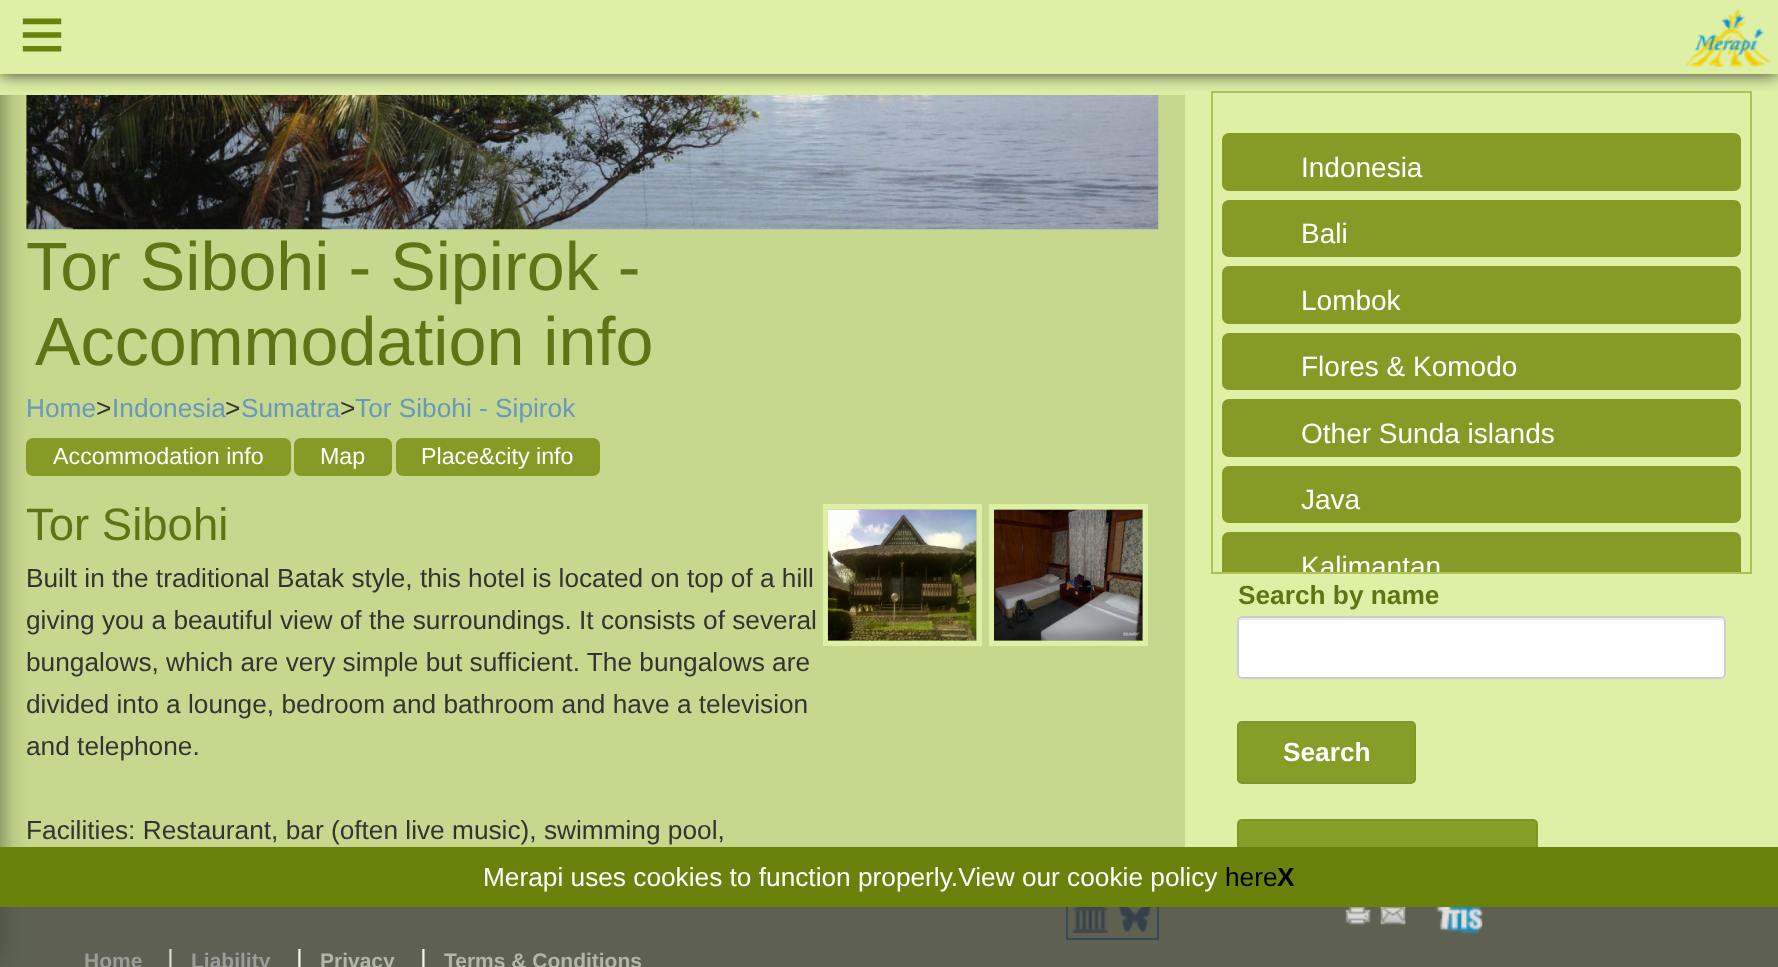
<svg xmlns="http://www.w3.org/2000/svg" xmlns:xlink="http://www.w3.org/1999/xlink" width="1778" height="967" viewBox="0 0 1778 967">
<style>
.cls-1{font:79px Liberation Sans;fill:#69820b}
.cls-2{font:68.25px Liberation Sans;fill:#5d7516}
.cls-3{font:26.25px Liberation Sans;fill:#6898bc}
.cls-4{font:26.25px Liberation Sans;fill:#333333}
.cls-5{font:23.25px Liberation Sans;fill:#ffffff}
.cls-6{font:45.5px Liberation Sans;fill:#5d7516}
.cls-7{font:28px Liberation Sans;fill:#ffffff}
.cls-8{font:bold 26.25px Liberation Sans;fill:#5d7516}
.cls-9{font:bold 26.25px Liberation Sans;fill:#ffffff}
.cls-10{font:26.25px Liberation Sans;fill:#ffffff}
.cls-11{font:26.25px Liberation Sans;fill:#000000}
.cls-12{font:bold 26.25px Liberation Sans;fill:#000000}
.cls-13{font:bold 21px Liberation Sans;fill:#9c9c99}
.cls-14{font:26.25px Liberation Sans;fill:#dbdcd8}
.cls-15{font:26.25px Liberation Sans;fill:#f3f7e8}
.cls-16{font:bold 21px Liberation Sans;fill:#b2b6a7}
</style>
<defs>
<clipPath id="clip1"><rect x="1265" y="532" width="433" height="40"/></clipPath>
</defs>
<rect width="100%" height="100%" fill="#c5d88d"/>
<rect fill="#869b26" x="26" y="438" width="265" height="38" rx="7"/>
<rect fill="#000000" fill-opacity="0.5" filter="blur(13px)" x="-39" y="0" width="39" height="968"/>
<rect fill="#ddf0a5" x="0" y="74" width="1778" height="21"/>
<image xlink:href="image1.png" x="26" y="95" width="1133" height="135"/>
<rect fill="#333333" filter="blur(9px)" x="0" y="0" width="1778" height="74"/>
<rect fill="#ddf0a5" x="0" y="0" width="1778" height="74"/>
<image xlink:href="image0.png" x="1685" y="9" width="86" height="58"/>
<rect fill="#869b26" x="294" y="438" width="98" height="38" rx="7"/>
<rect fill="#869b26" x="396" y="438" width="204" height="38" rx="7"/>
<rect fill="none" stroke="#ddf0a5" stroke-width="5" x="825.5" y="506.5" width="154" height="137"/>
<image xlink:href="image2.png" x="827" y="509" width="150" height="132"/>
<rect fill="none" stroke="#ddf0a5" stroke-width="5" x="991.5" y="506.5" width="154" height="137"/>
<image xlink:href="image3.png" x="994" y="509" width="149" height="132"/>
<rect fill="none" stroke="#006699" stroke-width="2" x="1067" y="894" width="91" height="45"/>
<image xlink:href="image4.png" x="1072" y="907" width="36" height="26"/>
<image xlink:href="image5.png" x="1118" y="907" width="34" height="26"/>
<rect fill="#ddf0a5" x="1185" y="91" width="593" height="756"/>
<rect fill="none" stroke="#adc354" stroke-width="2" x="1212" y="92" width="539" height="481"/>
<rect fill="#869b26" x="1222" y="133" width="519" height="58" rx="7"/>
<rect fill="#869b26" x="1222" y="200" width="519" height="57" rx="7"/>
<rect fill="#869b26" x="1222" y="266" width="519" height="58" rx="7"/>
<rect fill="#869b26" x="1222" y="333" width="519" height="57" rx="7"/>
<rect fill="#869b26" x="1222" y="399" width="519" height="58" rx="7"/>
<rect fill="#869b26" x="1222" y="466" width="519" height="57" rx="7"/>
<path fill="#869b26" d="M1229 532H1734C1738 532 1741 535 1741 539V572H1222V539C1222 535 1225 532 1229 532Z"/>
<rect fill="#ffffff" x="1237" y="616" width="489" height="63" rx="5"/>
<path fill="#ececec" d="M1242 620H1720C1722 620 1724 621 1724 623C1724 620 1723 618 1720 618H1243C1240 618 1239 620 1239 623C1239 621 1241 620 1242 620Z"/>
<rect fill="none" stroke="#cccccc" stroke-width="2" x="1238" y="617" width="487" height="61" rx="4"/>
<rect fill="#859e27" stroke="#7f9629" stroke-width="2" x="1238" y="722" width="177" height="61" rx="4"/>
<rect fill="#859e27" stroke="#7f9629" stroke-width="2" x="1238" y="820" width="299" height="61" rx="4"/>
<rect fill="#69820b" x="0" y="847" width="1778" height="60"/>
<rect fill="#444444" fill-opacity="0.8" x="0" y="907" width="1778" height="60"/>
<image xlink:href="image6.png" x="1345" y="907" width="26" height="18"/>
<image xlink:href="image7.png" x="1380" y="907" width="26" height="18"/>
<image xlink:href="image8.png" x="1436" y="907" width="47" height="27"/>
<text class="cls-1" x="19" y="61">≡</text>
<text class="cls-2" x="26" y="290">Tor Sibohi - Sipirok -</text>
<text class="cls-2" x="35" y="365">Accommodation info</text>
<text class="cls-3" x="26" y="417">Home</text>
<text class="cls-4" x="96" y="417">&gt;</text>
<text class="cls-3" x="112" y="417">Indonesia</text>
<text class="cls-4" x="225" y="417">&gt;</text>
<text class="cls-3" x="241" y="417">Sumatra</text>
<text class="cls-4" x="340" y="417">&gt;</text>
<text class="cls-3" x="355" y="417">Tor Sibohi - Sipirok</text>
<text class="cls-5" x="53" y="464">Accommodation info</text>
<text class="cls-5" x="320" y="464">Map</text>
<text class="cls-5" x="421" y="464">Place&amp;city info</text>
<text class="cls-6" x="26" y="540">Tor Sibohi</text>
<text class="cls-4"><tspan x="26" y="587">Built in the traditional Batak style, this hotel is located on top of a hill</tspan><tspan x="26" y="629">giving you a beautiful view of the surroundings. It consists of several</tspan><tspan x="26" y="671">bungalows, which are very simple but sufficient. The bungalows are</tspan><tspan x="26" y="713">divided into a lounge, bedroom and bathroom and have a television</tspan><tspan x="26" y="755">and telephone.</tspan></text>
<text class="cls-4" x="26" y="839">Facilities: Restaurant, bar (often live music), swimming pool,</text>
<text class="cls-7" x="1301" y="177">Indonesia</text>
<text class="cls-7" x="1301" y="243">Bali</text>
<text class="cls-7" x="1301" y="310">Lombok</text>
<text class="cls-7" x="1301" y="376">Flores &amp; Komodo</text>
<text class="cls-7" x="1301" y="443">Other Sunda islands</text>
<text class="cls-7" x="1301" y="509">Java</text>
<g clip-path="url(#clip1)">
<text class="cls-7" x="1301" y="576">Kalimantan</text>
</g>
<text class="cls-8" x="1238" y="604">Search by name</text>
<text class="cls-9" x="1283" y="761">Search</text>
<text class="cls-10" x="483" y="886">Merapi uses cookies to function properly.View our cookie policy</text>
<text class="cls-11" x="1225" y="886">here</text>
<text class="cls-12" x="1277" y="886">X</text>
<text class="cls-13" x="84" y="968">Home</text>
<text class="cls-14" x="167" y="968">|</text>
<text class="cls-13" x="191" y="968">Liability</text>
<text class="cls-15" x="296" y="968">|</text>
<text class="cls-16" x="320" y="968">Privacy</text>
<text class="cls-15" x="420" y="968">|</text>
<text class="cls-16" x="444" y="968">Terms &amp; Conditions</text>
</svg>
